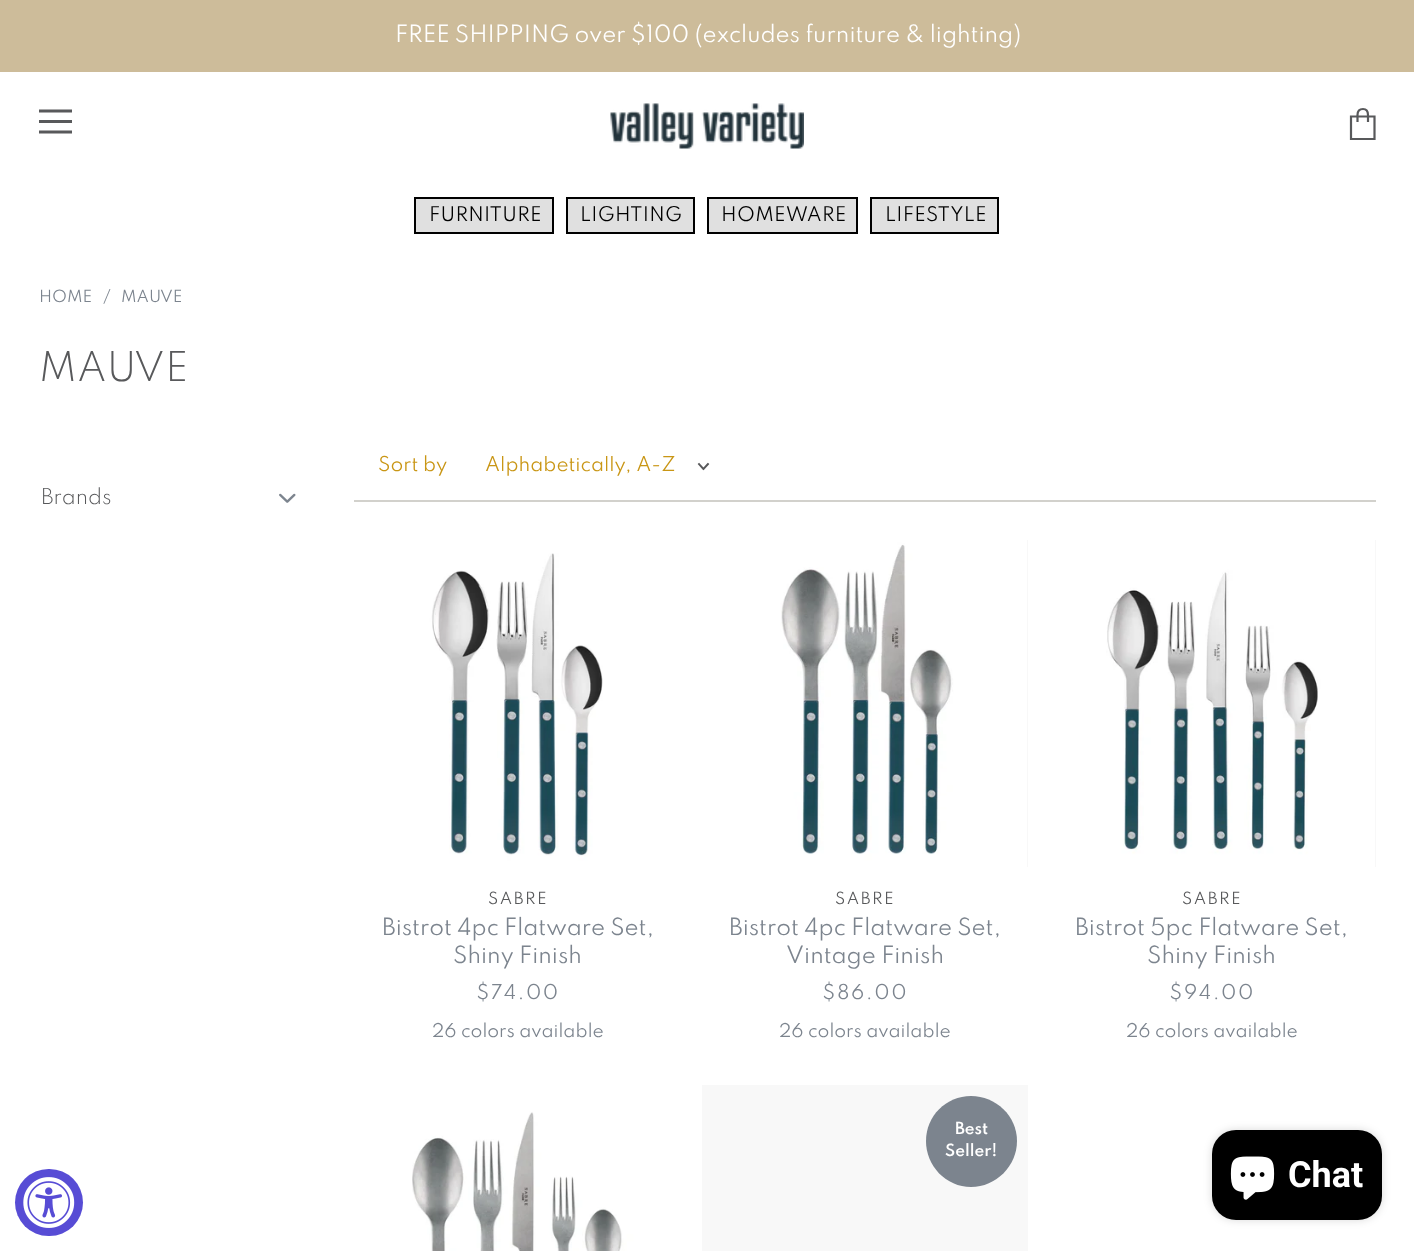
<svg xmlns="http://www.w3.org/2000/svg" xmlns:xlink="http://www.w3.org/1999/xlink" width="1414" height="1251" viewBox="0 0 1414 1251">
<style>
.cls-1{font:21.1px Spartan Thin;fill:#ffffff}
.cls-2{font:18px Spartan Thin;letter-spacing:0.25px;fill:#000000}
.cls-3{font:15px Spartan Thin;fill:#7c848e}
.cls-4{font:300 36.5px Spartan Thin;fill:#58595b}
.cls-5{font:300 19.5px Spartan Thin;fill:#58595b}
.cls-6{font:18.25px Spartan Thin;fill:#c99615}
.cls-7{font:15px Spartan Thin;letter-spacing:1.5px;fill:#58595b}
.cls-8{font:21.1px Spartan Thin;fill:#7c848e}
.cls-9{font:18.25px Spartan Thin;letter-spacing:1.5px;fill:#7c848e}
.cls-10{font:16.9px Spartan Thin;fill:#7c848e}
.cls-11{font:600 15px Spartan Thin;fill:#ffffff}
.cls-12{font:bold 36px Roboto;fill:#ffffff}
</style>
<defs>
<clipPath id="clip1"><rect x="485" y="456" width="192" height="21"/></clipPath>
</defs>
<rect width="100%" height="100%" fill="#ffffff"/>
<rect fill="#cdbc9a" x="0" y="0" width="1414" height="72"/>
<path fill="none" stroke="#58595b" stroke-width="3" stroke-linecap="square" stroke-linejoin="round" d="M70.5 111H40.5"/>
<rect fill="#58595b" x="39" y="120" width="33" height="3"/>
<path fill="none" stroke="#58595b" stroke-width="3" stroke-linecap="square" stroke-linejoin="round" d="M70.5 132H40.5"/>
<image xlink:href="image0.png" x="610" y="103" width="194" height="46"/>
<path fill="none" stroke="#58595b" stroke-width="2.2" d="M1351 116.5H1374.5V139H1351ZM1368 122V115C1368 110.5 1365.5 109 1363 109C1360 109 1357.5 110.5 1357.5 115V122"/>
<rect fill="#e0e0e0" stroke="#000000" stroke-width="2" x="415" y="198" width="138" height="35"/>
<rect fill="#e0e0e0" stroke="#000000" stroke-width="2" x="567" y="198" width="127" height="35"/>
<rect fill="#e0e0e0" stroke="#000000" stroke-width="2" x="708" y="198" width="149" height="35"/>
<rect fill="#e0e0e0" stroke="#000000" stroke-width="2" x="871" y="198" width="127" height="35"/>
<image xlink:href="image1.png" x="279" y="493" width="17" height="10"/>
<rect fill="#d2d1cc" x="354" y="500" width="1022" height="2"/>
<path fill="none" stroke="#58595b" stroke-width="1.9" stroke-linecap="square" d="M703.5 469L708 464M703.5 469L699 464"/>
<image xlink:href="image2.png" x="354" y="540" width="327" height="327"/>
<image xlink:href="image3.png" x="702" y="540" width="325" height="327"/>
<rect fill="#f8f8f8" x="1027" y="540" width="1" height="327"/>
<image xlink:href="image4.png" x="1049" y="540" width="326" height="327"/>
<rect fill="#f8f8f8" x="1375" y="540" width="1" height="327"/>
<image xlink:href="image5.png" x="354" y="1085" width="327" height="166"/>
<rect fill="#f8f8f8" x="702" y="1085" width="326" height="166"/>
<path fill="#7c848e" d="M971 1096C946 1096 926 1116 926 1141C926 1166 946 1187 971 1187C996 1187 1017 1166 1017 1141C1017 1116 996 1096 971 1096Z"/>
<rect fill="#574cd5" x="15" y="1169" width="68" height="67" rx="33.5"/>
<image xlink:href="image6.png" x="23" y="1177" width="52" height="51"/>
<rect fill="#000000" fill-opacity="0.15" filter="blur(4px)" x="1212" y="1130" width="170" height="90" rx="24"/>
<rect fill="#000000" x="1212" y="1130" width="170" height="90" rx="24"/>
<image xlink:href="image7.png" x="1230" y="1156" width="45" height="44"/>
<text class="cls-1" x="395" y="42">FREE SHIPPING over $100 (excludes furniture &amp; lighting)</text>
<text class="cls-2" x="429" y="221">FURNITURE</text>
<text class="cls-2" x="580" y="221">LIGHTING</text>
<text class="cls-2" x="721" y="221">HOMEWARE</text>
<text class="cls-2" x="885" y="221">LIFESTYLE</text>
<text class="cls-3" x="39" y="302">HOME</text>
<text class="cls-3" x="103" y="302">/</text>
<text class="cls-3" x="121" y="302">MAUVE</text>
<text class="cls-4" x="39" y="381">MAUVE</text>
<text class="cls-5" x="41" y="504">Brands</text>
<text class="cls-6" x="378" y="471">Sort by</text>
<g clip-path="url(#clip1)">
<text class="cls-6" x="485" y="471">Alphabetically, A-Z</text>
</g>
<text class="cls-7" x="488" y="904">SABRE</text>
<text class="cls-8" x="382" y="935">Bistrot 4pc Flatware Set,</text>
<text class="cls-8" x="453" y="963">Shiny Finish</text>
<text class="cls-9" x="476" y="999">$74.00</text>
<text class="cls-10" x="432" y="1037">26 colors available</text>
<text class="cls-7" x="835" y="904">SABRE</text>
<text class="cls-8" x="729" y="935">Bistrot 4pc Flatware Set,</text>
<text class="cls-8" x="786" y="963">Vintage Finish</text>
<text class="cls-9" x="822" y="999">$86.00</text>
<text class="cls-10" x="779" y="1037">26 colors available</text>
<text class="cls-7" x="1182" y="904">SABRE</text>
<text class="cls-8" x="1075" y="935">Bistrot 5pc Flatware Set,</text>
<text class="cls-8" x="1147" y="963">Shiny Finish</text>
<text class="cls-9" x="1169" y="999">$94.00</text>
<text class="cls-10" x="1126" y="1037">26 colors available</text>
<text class="cls-11" x="955" y="1134">Best</text>
<text class="cls-11" x="945" y="1156">Seller!</text>
<text class="cls-12" x="1288" y="1187">Chat</text>
</svg>
